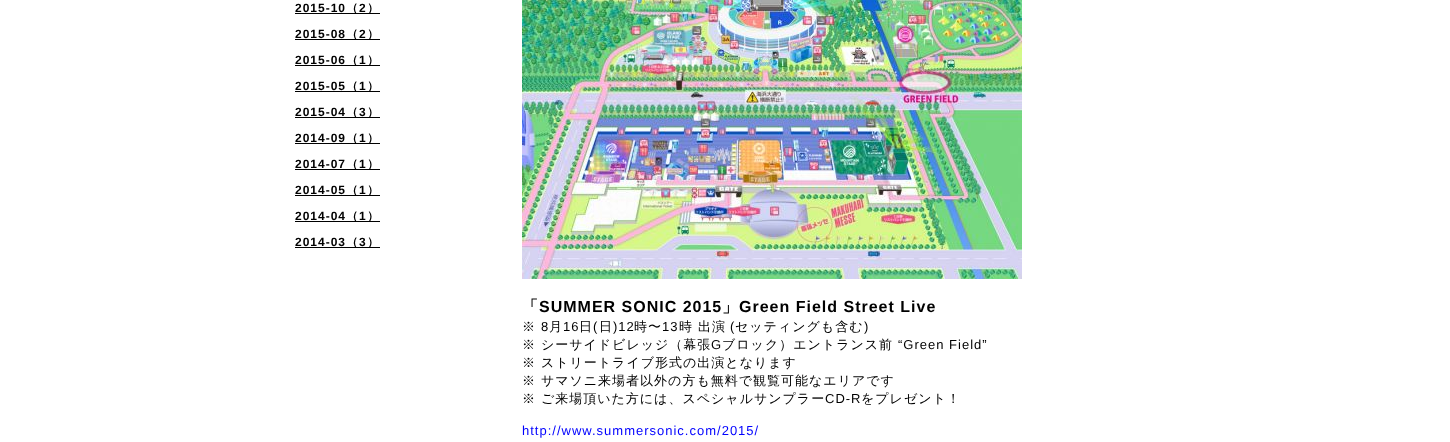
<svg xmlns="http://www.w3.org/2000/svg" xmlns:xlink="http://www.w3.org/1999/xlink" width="1450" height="442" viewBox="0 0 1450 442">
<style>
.cls-1{font:bold 12px Liberation Sans;letter-spacing:1px;fill:#000000}
.cls-2{font:bold 12px WenQuanYi Zen Hei;letter-spacing:1px;fill:#000000}
.cls-3{font:bold 16px WenQuanYi Zen Hei;letter-spacing:1px;fill:#000000}
.cls-4{font:bold 16px Liberation Sans;letter-spacing:1px;fill:#000000}
.cls-5{font:500 13px WenQuanYi Zen Hei;letter-spacing:1px;fill:#000000}
.cls-6{font:13px Liberation Sans;letter-spacing:1px;fill:#000000}
.cls-7{font:13px Liberation Sans;letter-spacing:1px;fill:#0000ff}
</style>
<rect width="100%" height="100%" fill="#ffffff"/>
<rect fill="#000000" x="295" y="13" width="85" height="1"/>
<rect fill="#000000" x="295" y="39" width="85" height="1"/>
<rect fill="#000000" x="295" y="65" width="85" height="1"/>
<rect fill="#000000" x="295" y="91" width="85" height="1"/>
<rect fill="#000000" x="295" y="117" width="85" height="1"/>
<rect fill="#000000" x="295" y="143" width="85" height="1"/>
<rect fill="#000000" x="295" y="169" width="85" height="1"/>
<rect fill="#000000" x="295" y="195" width="85" height="1"/>
<rect fill="#000000" x="295" y="221" width="85" height="1"/>
<rect fill="#000000" x="295" y="247" width="85" height="1"/>
<image xlink:href="image0.png" x="522" y="0" width="500" height="279"/>
<text class="cls-1" x="295" y="12">2015-10</text>
<text class="cls-2" x="346" y="12">（</text>
<text class="cls-1" x="359" y="12">2</text>
<text class="cls-2" x="367" y="12">）</text>
<text class="cls-1" x="295" y="38">2015-08</text>
<text class="cls-2" x="346" y="38">（</text>
<text class="cls-1" x="359" y="38">2</text>
<text class="cls-2" x="367" y="38">）</text>
<text class="cls-1" x="295" y="64">2015-06</text>
<text class="cls-2" x="346" y="64">（</text>
<text class="cls-1" x="359" y="64">1</text>
<text class="cls-2" x="367" y="64">）</text>
<text class="cls-1" x="295" y="90">2015-05</text>
<text class="cls-2" x="346" y="90">（</text>
<text class="cls-1" x="359" y="90">1</text>
<text class="cls-2" x="367" y="90">）</text>
<text class="cls-1" x="295" y="116">2015-04</text>
<text class="cls-2" x="346" y="116">（</text>
<text class="cls-1" x="359" y="116">3</text>
<text class="cls-2" x="367" y="116">）</text>
<text class="cls-1" x="295" y="142">2014-09</text>
<text class="cls-2" x="346" y="142">（</text>
<text class="cls-1" x="359" y="142">1</text>
<text class="cls-2" x="367" y="142">）</text>
<text class="cls-1" x="295" y="168">2014-07</text>
<text class="cls-2" x="346" y="168">（</text>
<text class="cls-1" x="359" y="168">1</text>
<text class="cls-2" x="367" y="168">）</text>
<text class="cls-1" x="295" y="194">2014-05</text>
<text class="cls-2" x="346" y="194">（</text>
<text class="cls-1" x="359" y="194">1</text>
<text class="cls-2" x="367" y="194">）</text>
<text class="cls-1" x="295" y="220">2014-04</text>
<text class="cls-2" x="346" y="220">（</text>
<text class="cls-1" x="359" y="220">1</text>
<text class="cls-2" x="367" y="220">）</text>
<text class="cls-1" x="295" y="246">2014-03</text>
<text class="cls-2" x="346" y="246">（</text>
<text class="cls-1" x="359" y="246">3</text>
<text class="cls-2" x="367" y="246">）</text>
<text class="cls-3" x="522" y="312">「</text>
<text class="cls-4" x="539" y="312">SUMMER SONIC 2015</text>
<text class="cls-3" x="722" y="312">」</text>
<text class="cls-4" x="739" y="312">Green Field Street Live</text>
<text class="cls-5" x="522" y="331">※</text>
<text class="cls-6" x="541" y="331">8</text>
<text class="cls-5" x="549" y="331">月</text>
<text class="cls-6" x="563" y="331">16</text>
<text class="cls-5" x="579" y="331">日</text>
<text class="cls-6" x="593" y="331">(</text>
<text class="cls-5" x="599" y="331">日</text>
<text class="cls-6" x="613" y="331">)12</text>
<text class="cls-5" x="634" y="331">時〜</text>
<text class="cls-6" x="662" y="331">13</text>
<text class="cls-5" x="679" y="331">時 出演</text>
<text class="cls-6" x="730" y="331">(</text>
<text class="cls-5" x="735" y="331">セッティングも含む</text>
<text class="cls-6" x="864" y="331">)</text>
<text class="cls-5" x="522" y="349">※ シーサイドビレッジ（幕張</text>
<text class="cls-6" x="711" y="349">G</text>
<text class="cls-5" x="722" y="349">ブロック）エントランス前</text>
<text class="cls-6" x="898" y="349">“Green Field”</text>
<text class="cls-5"><tspan x="522" y="367">※ ストリートライブ形式の出演となります</tspan><tspan x="522" y="385">※ サマソニ来場者以外の方も無料で観覧可能なエリアです</tspan><tspan x="522" y="403">※ ご来場頂いた方には、スペシャルサンプラー</tspan></text>
<text class="cls-6" x="825" y="403">CD-R</text>
<text class="cls-5" x="861" y="403">をプレゼント！</text>
<text class="cls-7" x="522" y="435">http://www.summersonic.com/2015/</text>
</svg>
